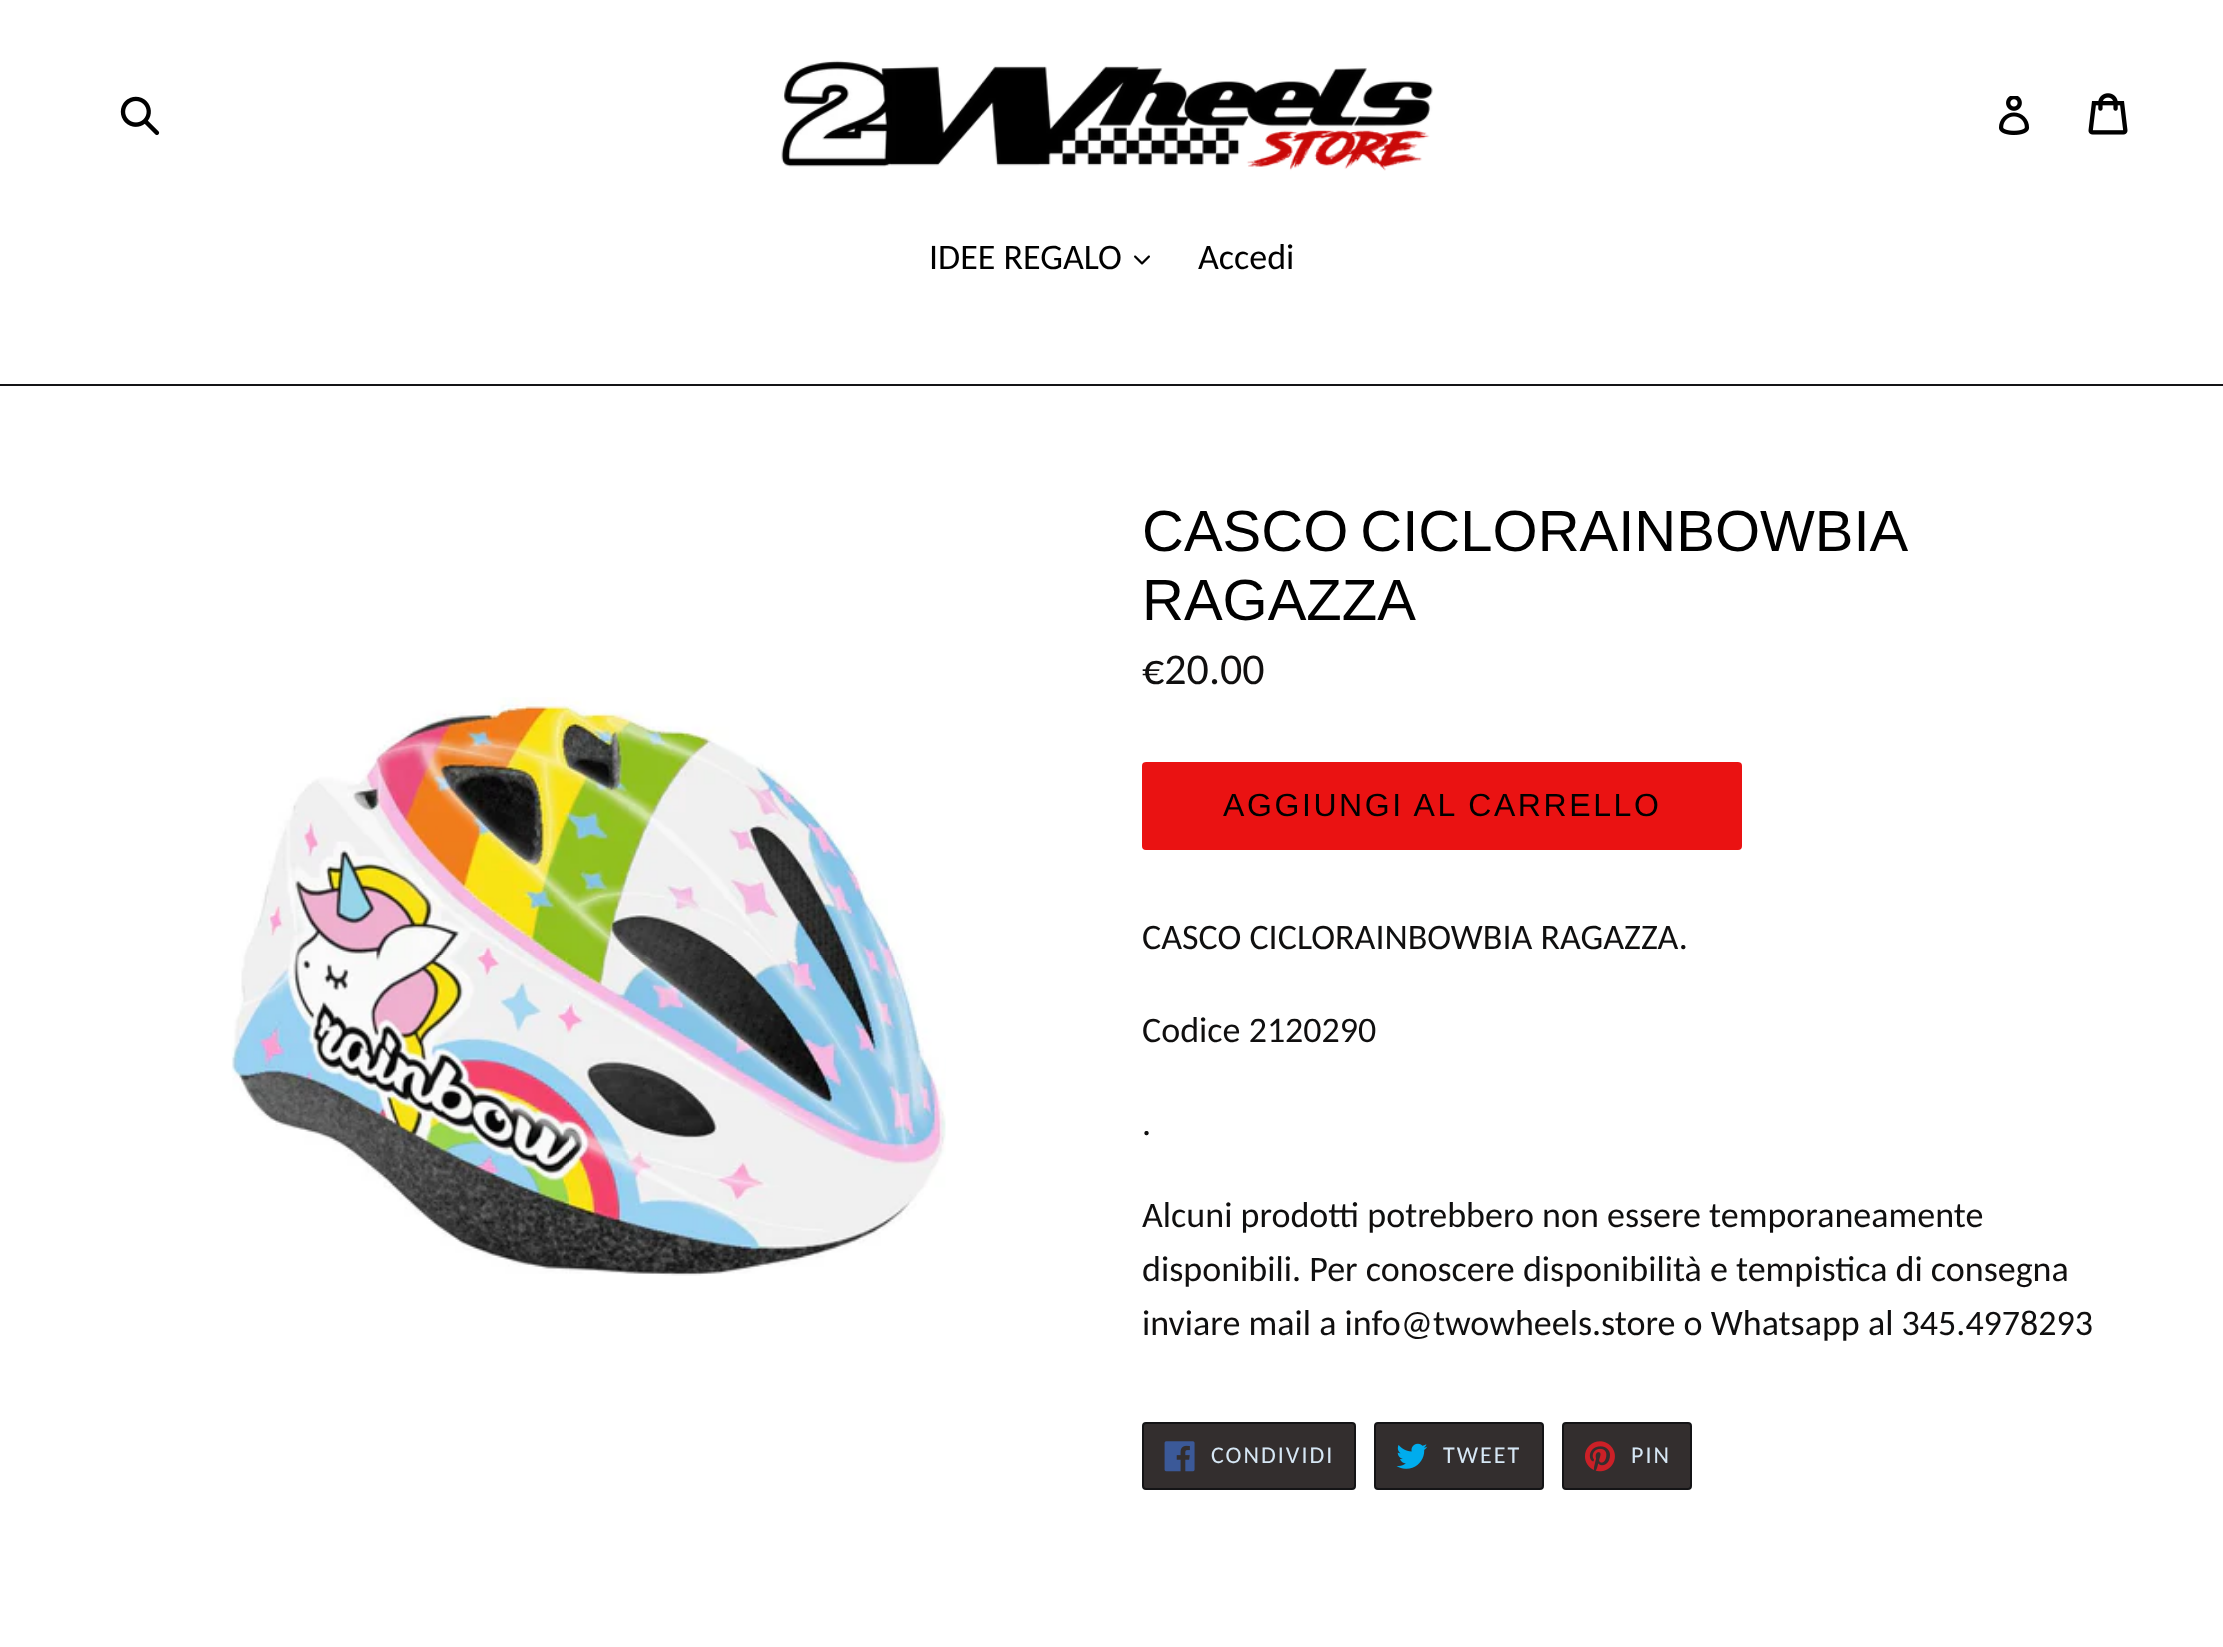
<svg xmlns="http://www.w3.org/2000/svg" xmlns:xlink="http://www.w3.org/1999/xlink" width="2223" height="1647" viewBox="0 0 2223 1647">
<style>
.cls-1{font:36px Carlito;fill:#000000}
.cls-2{font:58px Liberation Sans;fill:#000000}
.cls-3{font:44px Carlito;fill:#100f0f}
.cls-4{font:32px Liberation Sans;letter-spacing:2.6px;fill:#000000}
.cls-5{font:36px Carlito;fill:#100f0f}
.cls-6{font:24px Carlito;letter-spacing:2px;fill:#d6e7f5}
</style>
<rect width="100%" height="100%" fill="#ffffff"/>
<image xlink:href="image0.png" x="120" y="96" width="40" height="40"/>
<image xlink:href="image1.png" x="781" y="60" width="652" height="111"/>
<image xlink:href="image2.png" x="1999" y="96" width="31" height="39"/>
<image xlink:href="image3.png" x="2088" y="93" width="40" height="42"/>
<rect fill="#141416" x="0" y="384" width="2223" height="2"/>
<image xlink:href="image4.png" x="1134" y="255" width="16" height="10"/>
<image xlink:href="image5.png" x="231" y="697" width="715" height="579"/>
<rect fill="#ea1212" x="1142" y="762" width="600" height="88" rx="4"/>
<rect fill="#332e2e" stroke="#141416" stroke-width="2" x="1143" y="1423" width="212" height="66" rx="3"/>
<image xlink:href="image6.png" x="1164" y="1441" width="31" height="31"/>
<rect fill="#332e2e" stroke="#141416" stroke-width="2" x="1375" y="1423" width="168" height="66" rx="3"/>
<image xlink:href="image7.png" x="1396" y="1443" width="32" height="26"/>
<rect fill="#332e2e" stroke="#141416" stroke-width="2" x="1563" y="1423" width="128" height="66" rx="3"/>
<image xlink:href="image8.png" x="1584" y="1441" width="31" height="31"/>
<text class="cls-1" x="929" y="269">IDEE REGALO</text>
<text class="cls-1" x="1198" y="269">Accedi</text>
<text class="cls-2"><tspan x="1142" y="551" word-spacing="-4">CASCO CICLORAINBOWBIA</tspan><tspan x="1142" y="620">RAGAZZA</tspan></text>
<text class="cls-3" x="1142" y="684">€20.00</text>
<text class="cls-4" x="1223" y="816">AGGIUNGI AL CARRELLO</text>
<text class="cls-5" x="1142" y="949">CASCO CICLORAINBOWBIA RAGAZZA.</text>
<text class="cls-5" x="1142" y="1042">Codice 2120290</text>
<text class="cls-5" x="1142" y="1135">.</text>
<text class="cls-5"><tspan x="1142" y="1227">Alcuni prodotti potrebbero non essere temporaneamente</tspan><tspan x="1142" y="1281">disponibili. Per conoscere disponibilità e tempistica di consegna</tspan><tspan x="1142" y="1335">inviare mail a info@twowheels.store o Whatsapp al 345.4978293</tspan></text>
<text class="cls-6" x="1211" y="1463">CONDIVIDI</text>
<text class="cls-6" x="1443" y="1463">TWEET</text>
<text class="cls-6" x="1631" y="1463">PIN</text>
</svg>
